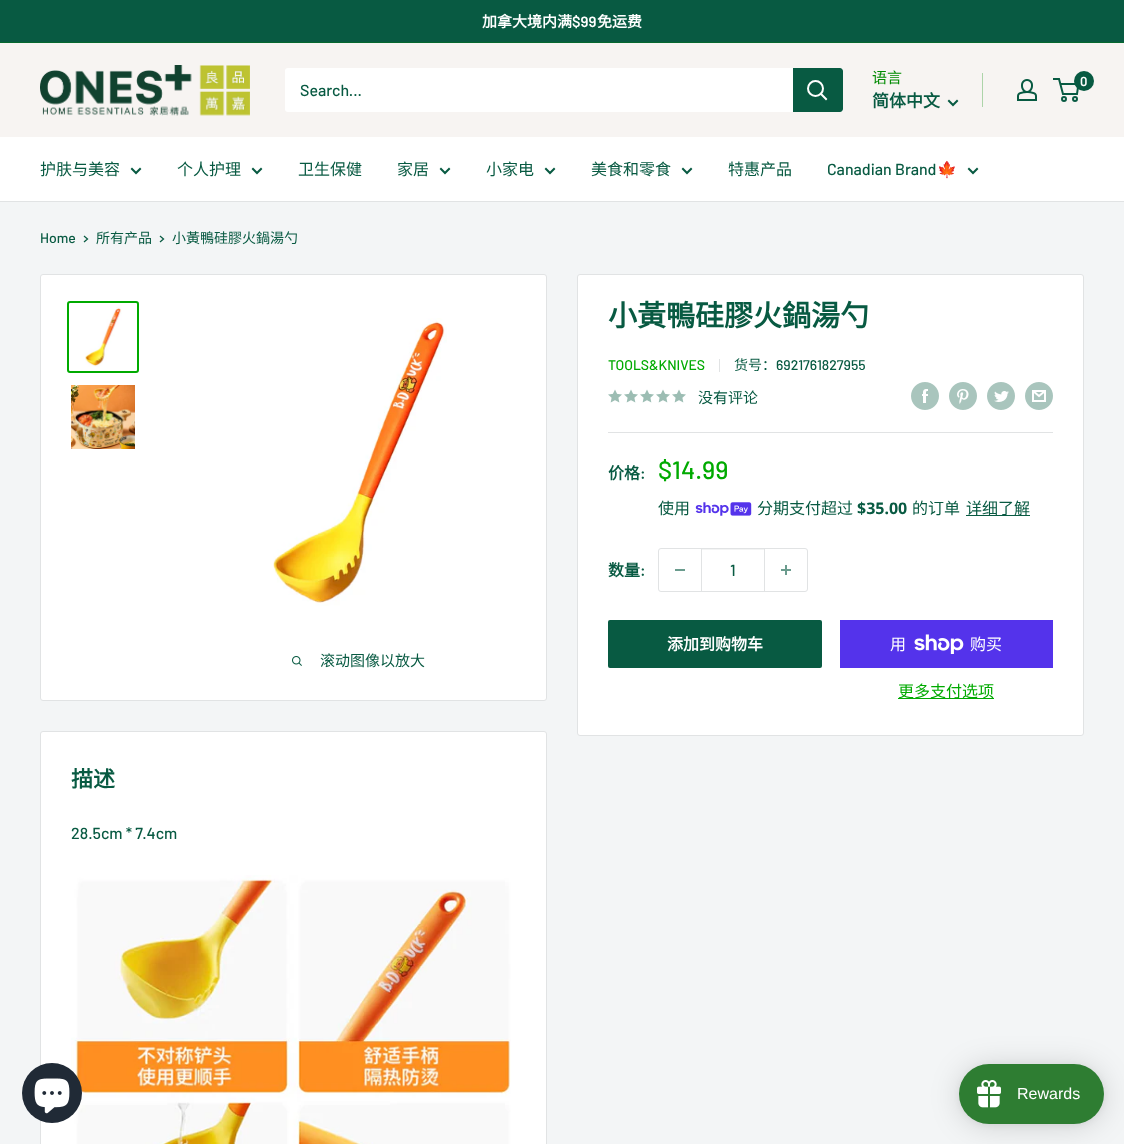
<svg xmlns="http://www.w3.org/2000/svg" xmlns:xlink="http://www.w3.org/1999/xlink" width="1124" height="1144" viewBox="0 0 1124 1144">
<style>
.cls-1{font:bold 15px Noto Sans CJK SC;fill:#ffffff}
.cls-2{font:600 15px Barlow;fill:#ffffff}
.cls-3{font:500 16px Barlow;fill:#085a42}
.cls-4{font:15px Noto Sans CJK SC;fill:#008a00}
.cls-5{font:bold 17px Noto Sans CJK SC;fill:#085a42}
.cls-6{font:600 13px Barlow;fill:#ffffff}
.cls-7{font:16px Noto Sans CJK SC;fill:#085a42}
.cls-8{font:16px Noto Color Emoji;fill:#085a42}
.cls-9{font:500 14px Barlow;fill:#085a42}
.cls-10{font:14px Noto Sans CJK SC;fill:#085a42}
.cls-11{font:15px Noto Sans CJK SC;fill:#085a42}
.cls-12{font:bold 29px Noto Sans CJK SC;fill:#085a42}
.cls-13{font:500 14px Barlow;fill:#00aa00}
.cls-14{font:bold 16px Noto Sans CJK SC;fill:#085a42}
.cls-15{font:600 16px Barlow;fill:#085a42}
.cls-16{font:500 25px Barlow;fill:#00aa00}
.cls-17{font:bold 16px Noto Sans;fill:#085a42}
.cls-18{font:bold 16px Noto Sans CJK SC;fill:#ffffff}
.cls-19{font:16px Noto Sans CJK SC;fill:#ffffff}
.cls-20{font:16px Noto Sans CJK SC;fill:#00aa00}
.cls-21{font:bold 22px Noto Sans CJK SC;fill:#085a42}
.cls-22{font:16px Liberation Sans;fill:#ffffff}
</style>
<rect width="100%" height="100%" fill="#f3f5f6"/>
<rect fill="#085a42" x="0" y="0" width="1124" height="42"/>
<rect fill="#06682e" x="0" y="42" width="1124" height="1"/>
<rect fill="#f7f4f2" x="0" y="43" width="1124" height="94"/>
<image xlink:href="image0.png" x="40" y="65" width="210" height="51"/>
<rect fill="#ffffff" x="285" y="68" width="558" height="44" rx="3"/>
<path fill="#085a42" d="M793 68H840C841.5 68 843 69.5 843 71V109C843 110.5 841.5 112 840 112H793Z"/>
<path fill="none" stroke="#ffffff" stroke-width="2" stroke-linecap="square" d="M826 99L821 94"/>
<circle fill="none" stroke="#ffffff" stroke-width="2" cx="815.5" cy="88.5" r="7.5"/>
<path fill="none" stroke="#085a42" stroke-width="2" stroke-linecap="square" d="M957 101L953 105L949 101"/>
<rect fill="#add4a9" x="982" y="73" width="1" height="34"/>
<image xlink:href="image1.png" x="1017" y="79" width="20" height="22"/>
<circle fill="none" stroke="#085a42" stroke-width="2" cx="1064" cy="99" r="2"/>
<circle fill="none" stroke="#085a42" stroke-width="2" cx="1075" cy="99" r="2"/>
<path fill="none" stroke="#085a42" stroke-width="2" d="M1060.5 84H1078.5L1077 94H1063L1059 79H1053"/>
<circle fill="#085a42" cx="1084" cy="81" r="10"/>
<rect fill="#ffffff" x="0" y="137" width="1124" height="64"/>
<rect fill="#e1e3e4" x="0" y="201" width="1124" height="1"/>
<path fill="none" stroke="#085a42" stroke-width="2" stroke-linecap="square" d="M140 169L136 173L132 169"/>
<path fill="none" stroke="#085a42" stroke-width="2" stroke-linecap="square" d="M261 169L257 173L253 169"/>
<path fill="none" stroke="#085a42" stroke-width="2" stroke-linecap="square" d="M449 169L445 173L441 169"/>
<path fill="none" stroke="#085a42" stroke-width="2" stroke-linecap="square" d="M554 169L550 173L546 169"/>
<path fill="none" stroke="#085a42" stroke-width="2" stroke-linecap="square" d="M691 169L687 173L683 169"/>
<path fill="none" stroke="#085a42" stroke-width="2" stroke-linecap="square" d="M977 169L973 173L969 169"/>
<path fill="none" stroke="#085a42" stroke-width="1.3" stroke-linecap="square" d="M84.5 236.5L87.5 239L84.5 241.5"/>
<path fill="none" stroke="#085a42" stroke-width="1.3" stroke-linecap="square" d="M160.5 236.5L163.5 239L160.5 241.5"/>
<rect fill="#ffffff" stroke="#e1e3e4" x="40.5" y="274.5" width="506" height="426" rx="2.5"/>
<rect fill="none" stroke="#00aa00" stroke-width="2" x="68" y="302" width="70" height="70" rx="2"/>
<image xlink:href="image2.png" x="85" y="305" width="37" height="62"/>
<image xlink:href="image3.png" x="71" y="385" width="64" height="64"/>
<image xlink:href="image4.png" x="273" y="318" width="174" height="288"/>
<image xlink:href="image5.png" x="292" y="656" width="10" height="10"/>
<rect fill="#ffffff" stroke="#e1e3e4" x="577.5" y="274.5" width="506" height="461" rx="2.5"/>
<rect fill="#e1e3e4" x="719" y="359" width="1" height="13"/>
<image xlink:href="image6.png" x="608" y="389" width="14" height="14"/>
<image xlink:href="image6.png" x="624" y="389" width="14" height="14"/>
<image xlink:href="image6.png" x="640" y="389" width="14" height="14"/>
<image xlink:href="image6.png" x="656" y="389" width="14" height="14"/>
<image xlink:href="image6.png" x="672" y="389" width="14" height="14"/>
<image xlink:href="image7.png" x="911" y="382" width="28" height="28"/>
<image xlink:href="image8.png" x="949" y="382" width="28" height="28"/>
<image xlink:href="image9.png" x="987" y="382" width="28" height="28"/>
<image xlink:href="image10.png" x="1025" y="382" width="28" height="28"/>
<rect fill="#e1e3e4" x="608" y="432" width="445" height="1"/>
<image xlink:href="image11.png" x="695" y="502" width="57" height="14"/>
<rect fill="#085a42" x="966" y="515" width="64" height="1"/>
<rect fill="none" stroke="#e1e3e4" x="658.5" y="548.5" width="149" height="43" rx="2.5"/>
<rect fill="#6b9c8e" x="675" y="569" width="10" height="2"/>
<rect fill="#f3f4f4" x="702" y="549" width="62" height="1"/>
<rect fill="#e1e3e4" x="764" y="549" width="1" height="42"/>
<rect fill="#e1e3e4" x="701" y="549" width="1" height="42"/>
<image xlink:href="image12.png" x="781" y="565" width="10" height="10"/>
<rect fill="#085a42" x="608" y="620" width="214" height="48" rx="2"/>
<rect fill="#5433eb" x="840" y="620" width="213" height="48"/>
<image xlink:href="image13.png" x="914" y="634" width="50" height="20"/>
<rect fill="#00aa00" x="898" y="698" width="96" height="1"/>
<rect fill="#ffffff" stroke="#e1e3e4" x="40.5" y="731.5" width="506" height="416" rx="2.5"/>
<image xlink:href="image14.png" x="71" y="875" width="440" height="269"/>
<circle fill="#202a36" cx="52" cy="1093" r="30"/>
<image xlink:href="image15.png" x="34" y="1078" width="36" height="36"/>
<rect fill="#000000" fill-opacity="0.15" filter="blur(15px)" x="959" y="1066" width="145" height="60" rx="30"/>
<rect fill="#000000" fill-opacity="0.05" filter="blur(3px)" x="959" y="1065" width="145" height="60" rx="30"/>
<rect fill="#2e7d32" x="959" y="1064" width="145" height="60" rx="30"/>
<image xlink:href="image16.png" x="977" y="1080" width="24" height="28"/>
<text class="cls-1" x="482" y="27">加拿大境内满</text>
<text class="cls-2" x="572" y="27">$99</text>
<text class="cls-1" x="597" y="27">免运费</text>
<text class="cls-3" x="300" y="96">Search...</text>
<text class="cls-4" x="872" y="83">语言</text>
<text class="cls-5" x="872" y="107">简体中文</text>
<text class="cls-6" x="1080" y="86">0</text>
<text class="cls-7" x="40" y="175">护肤与美容</text>
<text class="cls-7" x="177" y="175">个人护理</text>
<text class="cls-7" x="298" y="175">卫生保健</text>
<text class="cls-7" x="397" y="175">家居</text>
<text class="cls-7" x="486" y="175">小家电</text>
<text class="cls-7" x="591" y="175">美食和零食</text>
<text class="cls-7" x="728" y="175">特惠产品</text>
<text class="cls-3" x="827" y="175">Canadian Brand</text>
<text class="cls-8" x="937" y="175">🍁</text>
<text class="cls-9" x="40" y="243">Home</text>
<text class="cls-10" x="96" y="243">所有产品</text>
<text class="cls-10" x="172" y="243">小黃鴨硅膠火鍋湯勺</text>
<text class="cls-11" x="320" y="666">滚动图像以放大</text>
<text class="cls-12" x="608" y="326">小黃鴨硅膠火鍋湯勺</text>
<text class="cls-13" x="608" y="370">TOOLS&amp;KNIVES</text>
<text class="cls-10" x="734" y="370">货号：</text>
<text class="cls-9" x="776" y="370">6921761827955</text>
<text class="cls-11" x="698" y="403">没有评论</text>
<text class="cls-14" x="608" y="479">价格</text>
<text class="cls-15" x="640" y="479">:</text>
<text class="cls-16" x="658" y="479">$14.99</text>
<text class="cls-7" x="658" y="514">使用</text>
<text class="cls-7" x="757" y="514">分期支付超过</text>
<text class="cls-17" x="857" y="514">$35.00</text>
<text class="cls-7" x="912" y="514">的订单</text>
<text class="cls-7" x="966" y="514">详细了解</text>
<text class="cls-14" x="608" y="576">数量</text>
<text class="cls-15" x="640" y="576">:</text>
<text class="cls-3" x="730" y="576">1</text>
<text class="cls-18" x="667" y="650">添加到购物车</text>
<text class="cls-19" x="890" y="650">用</text>
<text class="cls-19" x="970" y="650">购买</text>
<text class="cls-20" x="898" y="697">更多支付选项</text>
<text class="cls-21" x="71" y="787">描述</text>
<text class="cls-3" x="71" y="839">28.5cm * 7.4cm</text>
<text class="cls-22" x="1017" y="1099">Rewards</text>
</svg>
